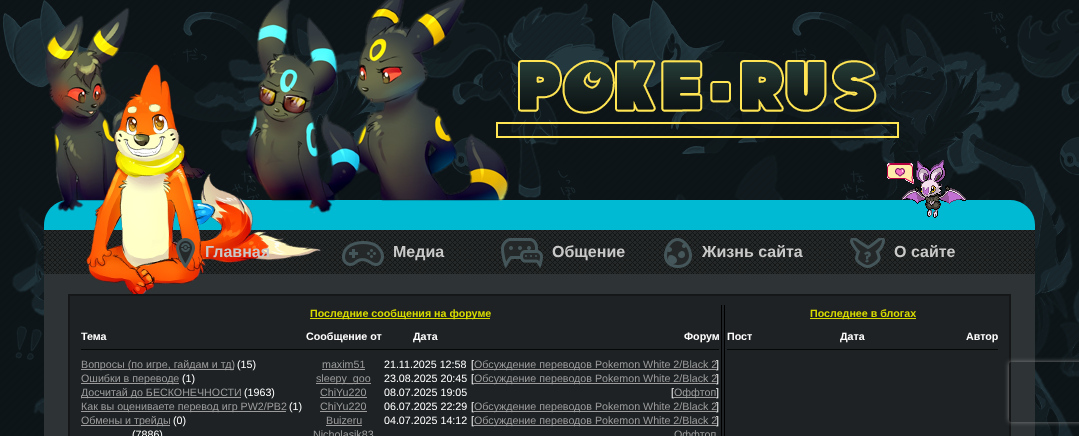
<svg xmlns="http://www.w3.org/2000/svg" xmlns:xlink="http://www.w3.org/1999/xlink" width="1079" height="436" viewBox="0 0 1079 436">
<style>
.cls-1{font:bold 16px Liberation Sans;fill:#c9c9c9}
.cls-2{font:bold 10.7px Liberation Sans;fill:#d8db00}
.cls-3{font:bold 10.7px Liberation Sans;fill:#ffffff}
.cls-4{font:10.7px Liberation Sans;fill:#9c9c9c}
.cls-5{font:10.7px Liberation Sans;fill:#ffffff}
</style>
<defs>
<clipPath id="clip1"><path d="M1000 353H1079V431H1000ZM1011 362H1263C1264 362 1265 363 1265 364V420C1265 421 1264 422 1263 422H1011C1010 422 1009 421 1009 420V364C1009 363 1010 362 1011 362Z" clip-rule="evenodd"/></clipPath>
</defs>
<rect width="100%" height="100%" fill="#ffffff"/>
<image xlink:href="image0.png" x="0" y="0" width="1079" height="436"/>
<path fill="#00bad4" d="M69 200H1010C1024 200 1035 211 1035 225V230H44V225C44 211 55 200 69 200Z"/>
<image xlink:href="image1.png" x="44" y="230" width="991" height="44"/>
<rect fill="#2e3436" x="44" y="274" width="991" height="162"/>
<image xlink:href="image2.png" x="45" y="0" width="854" height="294"/>
<image xlink:href="image3.png" x="887" y="160" width="79" height="58"/>
<image xlink:href="image4.png" x="176" y="238" width="19" height="30"/>
<image xlink:href="image5.png" x="342" y="241" width="42" height="25"/>
<image xlink:href="image6.png" x="501" y="238" width="42" height="30"/>
<image xlink:href="image7.png" x="664" y="238" width="28" height="30"/>
<image xlink:href="image8.png" x="850" y="238" width="35" height="30"/>
<rect fill="none" stroke="#141617" x="68.5" y="294.5" width="942" height="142"/>
<rect fill="#1e2224" stroke="#151718" x="69.5" y="295.5" width="940" height="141"/>
<rect fill="#000000" x="721" y="305" width="1" height="131"/>
<rect fill="#d8db00" x="310" y="318" width="180" height="1"/>
<rect fill="#060707" x="81" y="349" width="638" height="1"/>
<rect fill="#9c9c9c" x="81" y="369" width="153" height="1"/>
<rect fill="#9c9c9c" x="322" y="369" width="43" height="1"/>
<rect fill="#9c9c9c" x="474" y="369" width="242" height="1"/>
<rect fill="#9c9c9c" x="81" y="383" width="98" height="1"/>
<rect fill="#9c9c9c" x="316" y="383" width="55" height="1"/>
<rect fill="#9c9c9c" x="474" y="383" width="242" height="1"/>
<rect fill="#9c9c9c" x="81" y="397" width="160" height="1"/>
<rect fill="#9c9c9c" x="320" y="397" width="47" height="1"/>
<rect fill="#9c9c9c" x="81" y="411" width="205" height="1"/>
<rect fill="#9c9c9c" x="320" y="411" width="47" height="1"/>
<rect fill="#9c9c9c" x="474" y="411" width="242" height="1"/>
<rect fill="#9c9c9c" x="81" y="425" width="89" height="1"/>
<rect fill="#9c9c9c" x="326" y="425" width="36" height="1"/>
<rect fill="#9c9c9c" x="474" y="425" width="242" height="1"/>
<rect fill="#000000" x="724" y="305" width="1" height="131"/>
<rect fill="#d8db00" x="810" y="318" width="106" height="1"/>
<rect fill="#060707" x="727" y="349" width="271" height="1"/>
<g clip-path="url(#clip1)">
<rect fill="#808080" filter="blur(2.5px)" x="1009" y="362" width="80" height="60" rx="2"/>
</g>
<text class="cls-1" x="205" y="257">Главная</text>
<text class="cls-1" x="393" y="257">Медиа</text>
<text class="cls-1" x="552" y="257">Общение</text>
<text class="cls-1" x="702" y="257">Жизнь сайта</text>
<text class="cls-1" x="894" y="257">О сайте</text>
<text class="cls-2" x="310" y="317">Последние сообщения на форуме</text>
<text class="cls-3" x="81" y="340">Тема</text>
<text class="cls-3" x="306" y="340">Сообщение от</text>
<text class="cls-3" x="413" y="340">Дата</text>
<text class="cls-3" x="684" y="340">Форум</text>
<text class="cls-4" x="81" y="368">Вопросы (по игре, гайдам и тд)</text>
<text class="cls-5" x="237" y="368">(15)</text>
<text class="cls-4" x="322" y="368">maxim51</text>
<text class="cls-5" x="384" y="368">21.11.2025 12:58</text>
<text class="cls-5" x="471" y="368">[</text>
<text class="cls-4" x="474" y="368">Обсуждение переводов Pokemon White 2/Black 2</text>
<text class="cls-5" x="716" y="368">]</text>
<text class="cls-4" x="81" y="382">Ошибки в переводе</text>
<text class="cls-5" x="182" y="382">(1)</text>
<text class="cls-4" x="316" y="382">sleepy_goo</text>
<text class="cls-5" x="384" y="382">23.08.2025 20:45</text>
<text class="cls-5" x="471" y="382">[</text>
<text class="cls-4" x="474" y="382">Обсуждение переводов Pokemon White 2/Black 2</text>
<text class="cls-5" x="716" y="382">]</text>
<text class="cls-4" x="81" y="396">Досчитай до БЕСКОНЕЧНОСТИ</text>
<text class="cls-5" x="244" y="396">(1963)</text>
<text class="cls-4" x="320" y="396">ChiYu220</text>
<text class="cls-5" x="384" y="396">08.07.2025 19:05</text>
<text class="cls-5" x="671" y="396">[</text>
<rect fill="#9c9c9c" x="674" y="397" width="42" height="1"/>
<text class="cls-4" x="674" y="396">Оффтоп</text>
<text class="cls-5" x="716" y="396">]</text>
<text class="cls-4" x="81" y="410">Как вы оцениваете перевод игр PW2/PB2</text>
<text class="cls-5" x="289" y="410">(1)</text>
<text class="cls-4" x="320" y="410">ChiYu220</text>
<text class="cls-5" x="384" y="410">06.07.2025 22:29</text>
<text class="cls-5" x="471" y="410">[</text>
<text class="cls-4" x="474" y="410">Обсуждение переводов Pokemon White 2/Black 2</text>
<text class="cls-5" x="716" y="410">]</text>
<text class="cls-4" x="81" y="424">Обмены и трейды</text>
<text class="cls-5" x="173" y="424">(0)</text>
<text class="cls-4" x="326" y="424">Buizeru</text>
<text class="cls-5" x="384" y="424">04.07.2025 14:12</text>
<text class="cls-5" x="471" y="424">[</text>
<text class="cls-4" x="474" y="424">Обсуждение переводов Pokemon White 2/Black 2</text>
<text class="cls-5" x="716" y="424">]</text>
<text class="cls-5" x="132" y="438">(7886)</text>
<text class="cls-4" x="313" y="438">Nicholasik83</text>
<text class="cls-4" x="674" y="438">Оффтоп</text>
<text class="cls-2" x="810" y="317">Последнее в блогах</text>
<text class="cls-3" x="727" y="340">Пост</text>
<text class="cls-3" x="840" y="340">Дата</text>
<text class="cls-3" x="966" y="340">Автор</text>
</svg>
